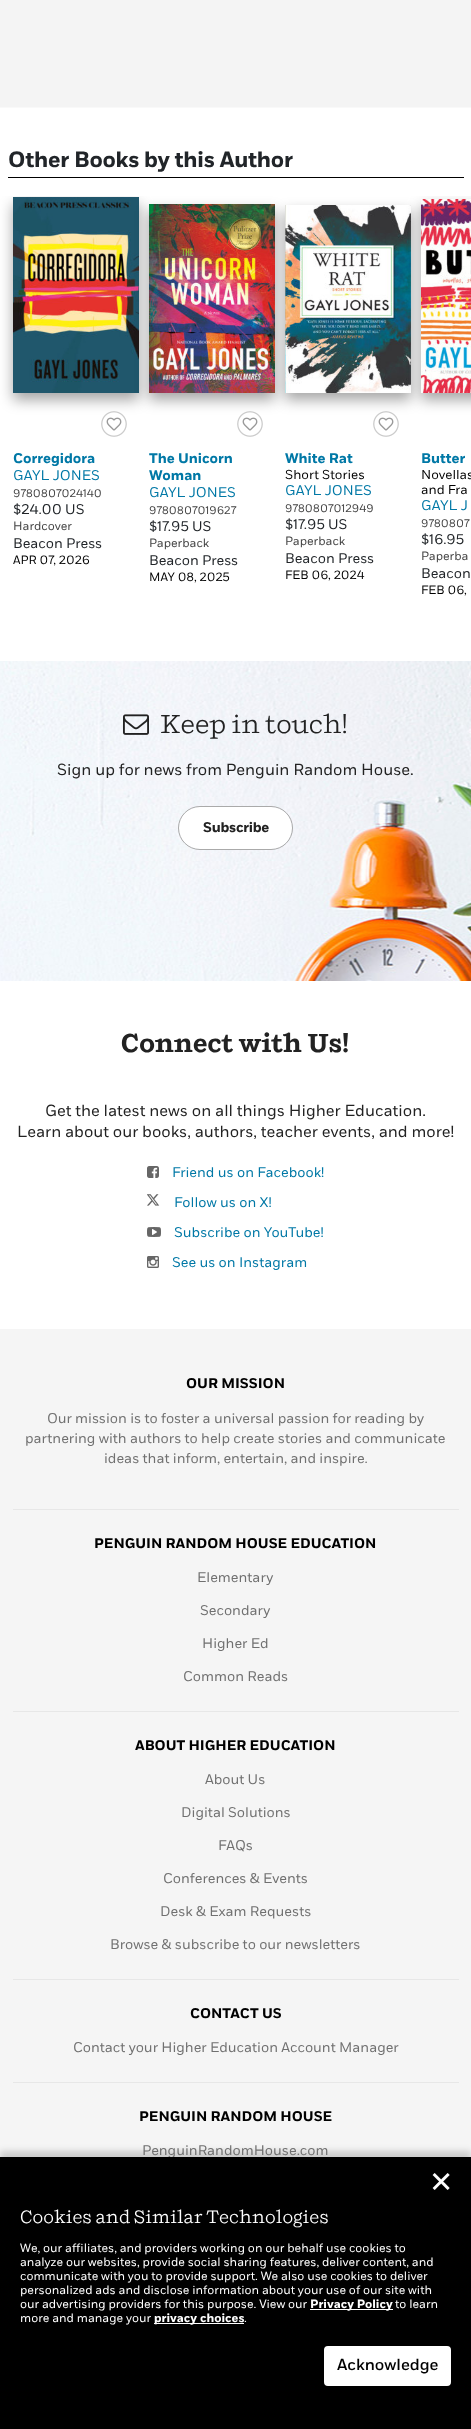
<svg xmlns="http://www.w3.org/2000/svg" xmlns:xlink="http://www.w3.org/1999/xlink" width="471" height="2429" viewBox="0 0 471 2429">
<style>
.cls-1{font:bold 22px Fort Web;letter-spacing:-0.25px;fill:#212529}
.cls-2{font:bold 14px Fort Web;fill:#0078a6}
.cls-3{font:14px Fort Web;fill:#0078a6}
.cls-4{font:11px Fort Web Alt;fill:#444444}
.cls-5{font:14px Fort Web Alt;fill:#212529}
.cls-6{font:12px Fort Web;fill:#444444}
.cls-7{font:14px Fort Web;fill:#212529}
.cls-8{font:12px Fort Web Alt;fill:#000000}
.cls-9{font:13px Fort Web;fill:#000000}
.cls-10{font:26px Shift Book;fill:#222222}
.cls-11{font:16px Fort Web;fill:#222222}
.cls-12{font:bold 14px Fort Web;letter-spacing:-0.25px;fill:#222222}
.cls-13{font:bold 26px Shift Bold;fill:#222222}
.cls-14{font:16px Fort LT;fill:#222222}
.cls-15{font:14px Fort LT;fill:#0078a6}
.cls-16{font:bold 14px Fort Web;fill:#000000}
.cls-17{font:14px Fort Web;fill:#707070}
.cls-18{font:29px DejaVu Sans;fill:#ffffff}
.cls-19{font:18px Shift Book;fill:#ffffff}
.cls-20{font:12px Fort LT;fill:#ffffff}
.cls-21{font:bold 12px Fort LT;fill:#ffffff}
.cls-22{font:500 16px Fort LT;fill:#000000}
</style>
<defs>
<clipPath id="clip1"><rect x="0" y="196" width="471" height="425"/></clipPath>
</defs>
<rect width="100%" height="100%" fill="#ffffff"/>
<rect fill="#f4f4f4" x="0" y="0" width="471" height="107"/>
<rect fill="#f9f9f9" x="0" y="107" width="471" height="1"/>
<rect fill="#000000" x="8" y="177" width="456" height="1"/>
<g clip-path="url(#clip1)">
<rect fill="#000000" fill-opacity="0.35" filter="blur(7px)" x="13" y="204" width="126" height="196"/>
</g>
<image xlink:href="image0.png" x="13" y="197" width="126" height="196"/>
<image xlink:href="image1.png" x="101" y="411" width="26" height="26"/>
<rect fill="#000000" fill-opacity="0.35" filter="blur(7px)" x="149" y="211" width="126" height="189"/>
<image xlink:href="image2.png" x="149" y="204" width="126" height="189"/>
<image xlink:href="image1.png" x="237" y="411" width="26" height="26"/>
<rect fill="#000000" fill-opacity="0.35" filter="blur(7px)" x="285" y="212" width="126" height="188"/>
<image xlink:href="image3.png" x="285" y="205" width="126" height="188"/>
<image xlink:href="image1.png" x="373" y="411" width="26" height="26"/>
<g clip-path="url(#clip1)">
<rect fill="#000000" fill-opacity="0.35" filter="blur(7px)" x="421" y="206" width="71" height="194"/>
</g>
<image xlink:href="image4.png" x="421" y="199" width="50" height="194"/>
<image xlink:href="image5.png" x="0" y="661" width="471" height="320"/>
<image xlink:href="image6.png" x="123" y="714" width="26" height="21"/>
<rect fill="#ffffff" x="179" y="807" width="113" height="42" rx="21"/>
<rect fill="none" stroke="#aaaaaa" x="178.5" y="806.5" width="114" height="43" rx="21.5"/>
<image xlink:href="image7.png" x="147" y="1166" width="12" height="12"/>
<image xlink:href="image8.png" x="147" y="1194" width="13" height="12"/>
<image xlink:href="image9.png" x="147" y="1227" width="14" height="10"/>
<image xlink:href="image10.png" x="147" y="1256" width="12" height="12"/>
<rect fill="#f5f5f5" x="0" y="1329" width="471" height="828"/>
<rect fill="#e7e7e7" x="13" y="1509" width="446" height="1"/>
<rect fill="#e7e7e7" x="13" y="1711" width="446" height="1"/>
<rect fill="#e7e7e7" x="13" y="1979" width="446" height="1"/>
<rect fill="#e7e7e7" x="13" y="2082" width="446" height="1"/>
<rect fill="#000000" fill-opacity="0.16" filter="blur(3px)" x="0" y="2151" width="471" height="272"/>
<text class="cls-1" x="8" y="167">Other Books by this Author</text>
<text class="cls-2" x="13" y="463">Corregidora</text>
<text class="cls-3" x="13" y="480">GAYL JONES</text>
<text class="cls-4" x="13" y="497">9780807024140</text>
<text class="cls-5" x="13" y="514">$24.00 US</text>
<text class="cls-6" x="13" y="530">Hardcover</text>
<text class="cls-7" x="13" y="548">Beacon Press</text>
<text class="cls-8" x="13" y="564">APR 07, 2026</text>
<text class="cls-2"><tspan x="149" y="463">The Unicorn</tspan><tspan x="149" y="480">Woman</tspan></text>
<text class="cls-3" x="149" y="497">GAYL JONES</text>
<text class="cls-4" x="149" y="514">9780807019627</text>
<text class="cls-5" x="149" y="531">$17.95 US</text>
<text class="cls-6" x="149" y="547">Paperback</text>
<text class="cls-7" x="149" y="565">Beacon Press</text>
<text class="cls-8" x="149" y="581">MAY 08, 2025</text>
<text class="cls-2" x="285" y="463">White Rat</text>
<text class="cls-9" x="285" y="479">Short Stories</text>
<text class="cls-3" x="285" y="495">GAYL JONES</text>
<text class="cls-4" x="285" y="512">9780807012949</text>
<text class="cls-5" x="285" y="529">$17.95 US</text>
<text class="cls-6" x="285" y="545">Paperback</text>
<text class="cls-7" x="285" y="563">Beacon Press</text>
<text class="cls-8" x="285" y="579">FEB 06, 2024</text>
<text class="cls-2" x="421" y="463">Butter</text>
<text class="cls-9"><tspan x="421" y="479">Novellas</tspan><tspan x="421" y="494">and Fra</tspan></text>
<text class="cls-3" x="421" y="510">GAYL J</text>
<text class="cls-4" x="421" y="527">9780807</text>
<text class="cls-5" x="421" y="544">$16.95</text>
<text class="cls-6" x="421" y="560">Paperba</text>
<text class="cls-7" x="421" y="578">Beacon</text>
<text class="cls-8" x="421" y="594">FEB 06,</text>
<text class="cls-10" x="160" y="733">Keep in touch!</text>
<text class="cls-11" x="57" y="775">Sign up for news from Penguin Random House.</text>
<text class="cls-12" x="203" y="832">Subscribe</text>
<text class="cls-13" x="121" y="1052">Connect with Us!</text>
<text class="cls-14" x="45" y="1116">Get the latest news on all things Higher Education.</text>
<text class="cls-14" x="17" y="1137">Learn about our books, authors, teacher events, and more!</text>
<text class="cls-15" x="172" y="1177">Friend us on Facebook!</text>
<text class="cls-15" x="174" y="1207">Follow us on X!</text>
<text class="cls-15" x="174" y="1237">Subscribe on YouTube!</text>
<text class="cls-15" x="172" y="1267">See us on Instagram</text>
<text class="cls-16" x="186" y="1388">OUR MISSION</text>
<text class="cls-17" x="47" y="1423">Our mission is to foster a universal passion for reading by</text>
<text class="cls-17" x="25" y="1443">partnering with authors to help create stories and communicate</text>
<text class="cls-17" x="104" y="1463">ideas that inform, entertain, and inspire.</text>
<text class="cls-16" x="94" y="1548">PENGUIN RANDOM HOUSE EDUCATION</text>
<text class="cls-17" x="197" y="1582">Elementary</text>
<text class="cls-17" x="200" y="1615">Secondary</text>
<text class="cls-17" x="202" y="1648">Higher Ed</text>
<text class="cls-17" x="183" y="1681">Common Reads</text>
<text class="cls-16" x="135" y="1750">ABOUT HIGHER EDUCATION</text>
<text class="cls-17" x="205" y="1784">About Us</text>
<text class="cls-17" x="181" y="1817">Digital Solutions</text>
<text class="cls-17" x="218" y="1850">FAQs</text>
<text class="cls-17" x="163" y="1883">Conferences &amp; Events</text>
<text class="cls-17" x="160" y="1916">Desk &amp; Exam Requests</text>
<text class="cls-17" x="110" y="1949">Browse &amp; subscribe to our newsletters</text>
<text class="cls-16" x="190" y="2018">CONTACT US</text>
<text class="cls-17" x="73" y="2052">Contact your Higher Education Account Manager</text>
<text class="cls-16" x="139" y="2121">PENGUIN RANDOM HOUSE</text>
<text class="cls-17" x="142" y="2155">PenguinRandomHouse.com</text>
<rect fill="#000000" x="0" y="2157" width="471" height="272"/>
<text class="cls-18" x="429" y="2192">✕</text>
<text class="cls-19" x="20" y="2223">Cookies and Similar Technologies</text>
<text class="cls-20"><tspan x="20" y="2252">We, our affiliates, and providers working on our behalf use cookies to</tspan><tspan x="20" y="2266">analyze our websites, provide social sharing features, deliver content, and</tspan><tspan x="20" y="2280">communicate with you to provide support. We also use cookies to deliver</tspan><tspan x="20" y="2294">personalized ads and disclose information about your use of our site with</tspan><tspan x="20" y="2308">our advertising providers for this purpose. View our</tspan></text>
<rect fill="#ffffff" x="310" y="2309" width="83" height="1"/>
<text class="cls-21" x="310" y="2308">Privacy Policy</text>
<text class="cls-20" x="395" y="2308">to learn</text>
<text class="cls-20" x="20" y="2322">more and manage your</text>
<rect fill="#ffffff" x="154" y="2323" width="90" height="1"/>
<text class="cls-21" x="154" y="2322">privacy choices</text>
<text class="cls-20" x="244" y="2322">.</text>
<rect fill="#ffffff" stroke="#ffffff" stroke-width="2" x="325" y="2347" width="125" height="38" rx="3"/>
<text class="cls-22" x="337" y="2370">Acknowledge</text>
</svg>
